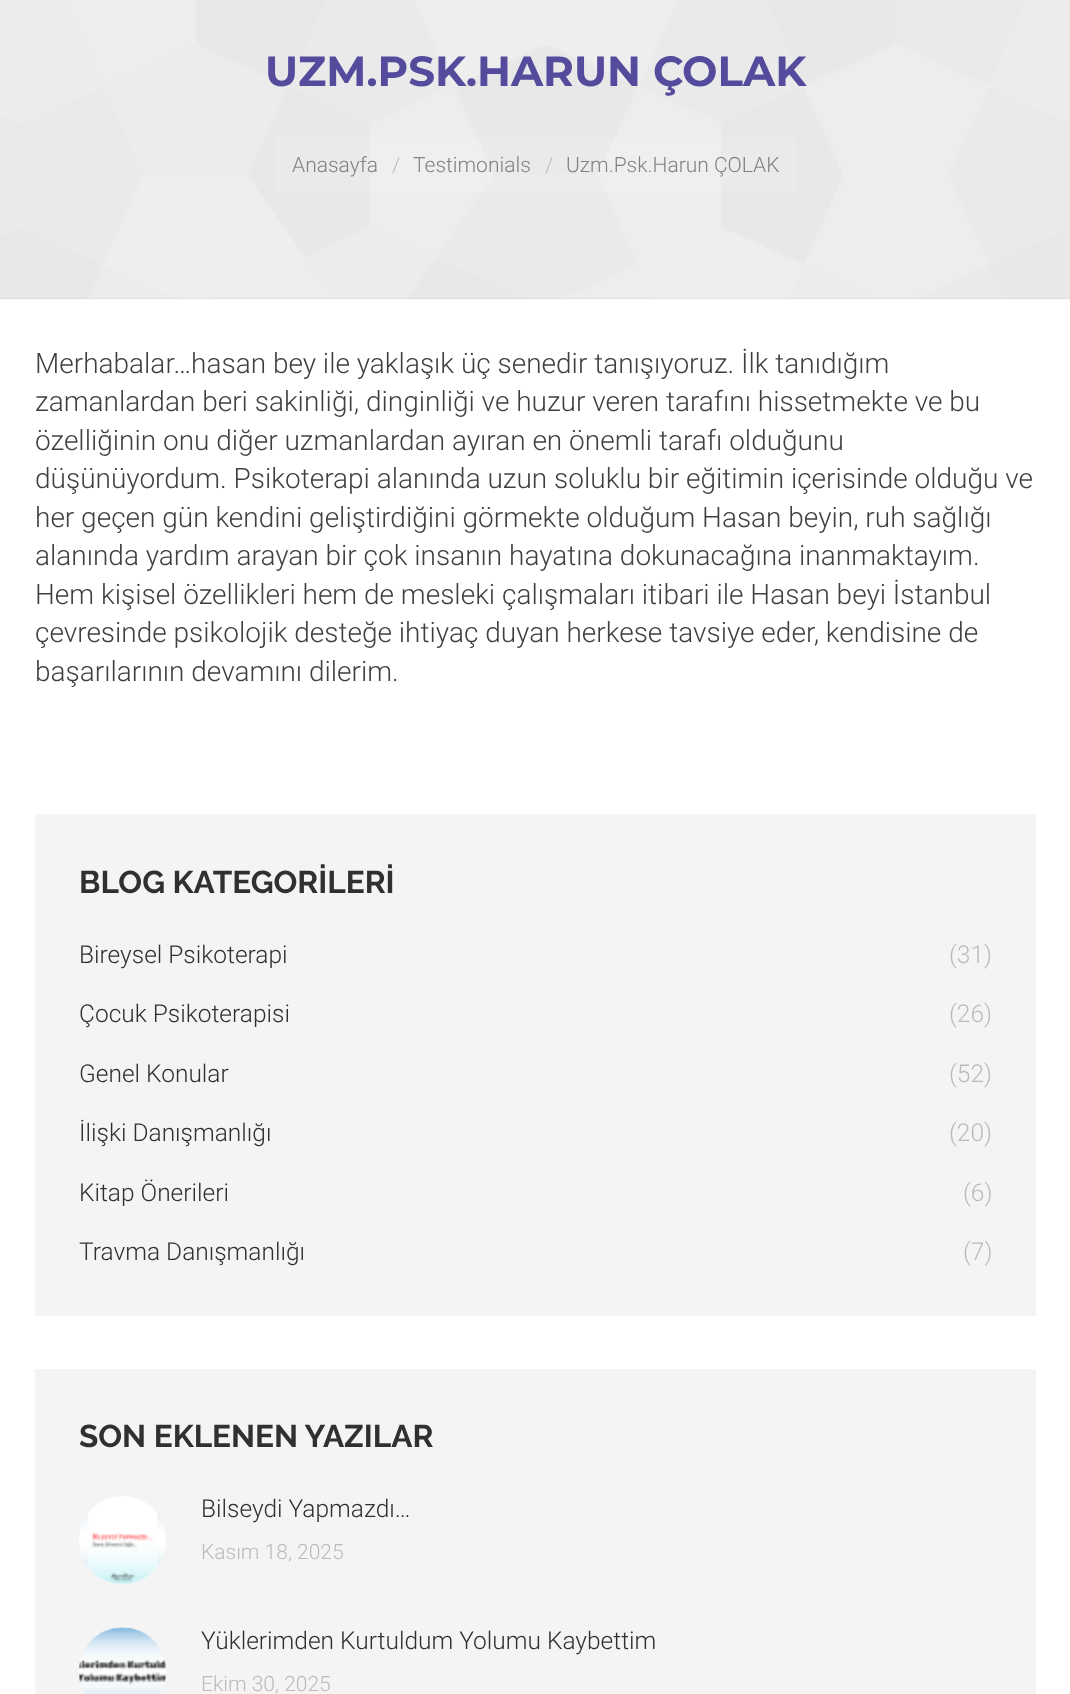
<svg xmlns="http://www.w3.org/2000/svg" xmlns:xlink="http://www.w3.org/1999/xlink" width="1070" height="1694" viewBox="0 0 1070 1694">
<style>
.cls-1{font:bold 42px Montserrat;fill:#544b9d}
.cls-2{font:300 21px Roboto;fill:#828282}
.cls-3{font:300 21px Roboto;fill:#bbbbbb}
.cls-4{font:300 28px Roboto;fill:#3f3f3f}
.cls-5{font:bold 31.5px Raleway;fill:#303030}
.cls-6{font:300 24.5px Roboto;fill:#303030}
.cls-7{font:300 24.5px Roboto;fill:#bbbbbb}
</style>
<defs>
<linearGradient id="g1" gradientUnits="userSpaceOnUse" x1="535" y1="299" x2="536" y2="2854"><stop offset="0" stop-color="#ffffff" stop-opacity="0.75"/><stop offset="0" stop-color="#ffffff" stop-opacity="0.8"/><stop offset="0.01" stop-color="#ffffff" stop-opacity="0.86"/><stop offset="0.01" stop-color="#ffffff" stop-opacity="0.9"/><stop offset="0.01" stop-color="#ffffff" stop-opacity="0.94"/><stop offset="0.02" stop-color="#ffffff" stop-opacity="0.98"/><stop offset="0.02" stop-color="#ffffff" stop-opacity="0.99"/><stop offset="0.03" stop-color="#ffffff"/></linearGradient>
</defs>
<rect width="100%" height="100%" fill="#ffffff"/>
<rect fill="#f4f4f4" x="0" y="0" width="1070" height="299"/>
<image xlink:href="image0.png" x="0" y="0" width="1070" height="300"/>
<rect fill="#ffffff" fill-opacity="0.12" x="275" y="137" width="521" height="56"/>
<rect fill="#052639" fill-opacity="0.05" x="0" y="298" width="1070" height="1"/>
<rect fill="url(#g1)" x="0" y="299" width="1070" height="1"/>
<rect fill="#f4f4f4" x="35" y="814" width="1001" height="502"/>
<rect fill="#f4f4f4" x="35" y="1369" width="1001" height="325"/>
<image xlink:href="image1.png" x="79" y="1496" width="87" height="88"/>
<image xlink:href="image2.png" x="79" y="1627" width="87" height="67"/>
<text class="cls-1" x="265" y="86">UZM.PSK.HARUN ÇOLAK</text>
<text class="cls-2" x="292" y="172">Anasayfa</text>
<text class="cls-3" x="392" y="172">/</text>
<text class="cls-2" x="413" y="172">Testimonials</text>
<text class="cls-3" x="545" y="172">/</text>
<text class="cls-2" x="566" y="172">Uzm.Psk.Harun ÇOLAK</text>
<text class="cls-4"><tspan x="35" y="373">Merhabalar…hasan bey ile yaklaşık üç senedir tanışıyoruz. İlk tanıdığım</tspan><tspan x="35" y="411">zamanlardan beri sakinliği, dinginliği ve huzur veren tarafını hissetmekte ve bu</tspan><tspan x="35" y="450">özelliğinin onu diğer uzmanlardan ayıran en önemli tarafı olduğunu</tspan><tspan x="35" y="488">düşünüyordum. Psikoterapi alanında uzun soluklu bir eğitimin içerisinde olduğu ve</tspan><tspan x="35" y="527">her geçen gün kendini geliştirdiğini görmekte olduğum Hasan beyin, ruh sağlığı</tspan><tspan x="35" y="565">alanında yardım arayan bir çok insanın hayatına dokunacağına inanmaktayım.</tspan><tspan x="35" y="604">Hem kişisel özellikleri hem de mesleki çalışmaları itibari ile Hasan beyi İstanbul</tspan><tspan x="35" y="642">çevresinde psikolojik desteğe ihtiyaç duyan herkese tavsiye eder, kendisine de</tspan><tspan x="35" y="681">başarılarının devamını dilerim.</tspan></text>
<text class="cls-5" x="79" y="893">BLOG KATEGORİLERİ</text>
<text class="cls-6" x="79" y="963">Bireysel Psikoterapi</text>
<text class="cls-7" x="949" y="963">(31)</text>
<text class="cls-6" x="79" y="1022">Çocuk Psikoterapisi</text>
<text class="cls-7" x="949" y="1022">(26)</text>
<text class="cls-6" x="79" y="1082">Genel Konular</text>
<text class="cls-7" x="949" y="1082">(52)</text>
<text class="cls-6" x="79" y="1141">İlişki Danışmanlığı</text>
<text class="cls-7" x="949" y="1141">(20)</text>
<text class="cls-6" x="79" y="1201">Kitap Önerileri</text>
<text class="cls-7" x="963" y="1201">(6)</text>
<text class="cls-6" x="79" y="1260">Travma Danışmanlığı</text>
<text class="cls-7" x="963" y="1260">(7)</text>
<text class="cls-5" x="79" y="1447">SON EKLENEN YAZILAR</text>
<text class="cls-6" x="201" y="1517">Bilseydi Yapmazdı…</text>
<text class="cls-3" x="201" y="1559">Kasım 18, 2025</text>
<text class="cls-6" x="201" y="1649">Yüklerimden Kurtuldum Yolumu Kaybettim</text>
<text class="cls-3" x="201" y="1691">Ekim 30, 2025</text>
</svg>
